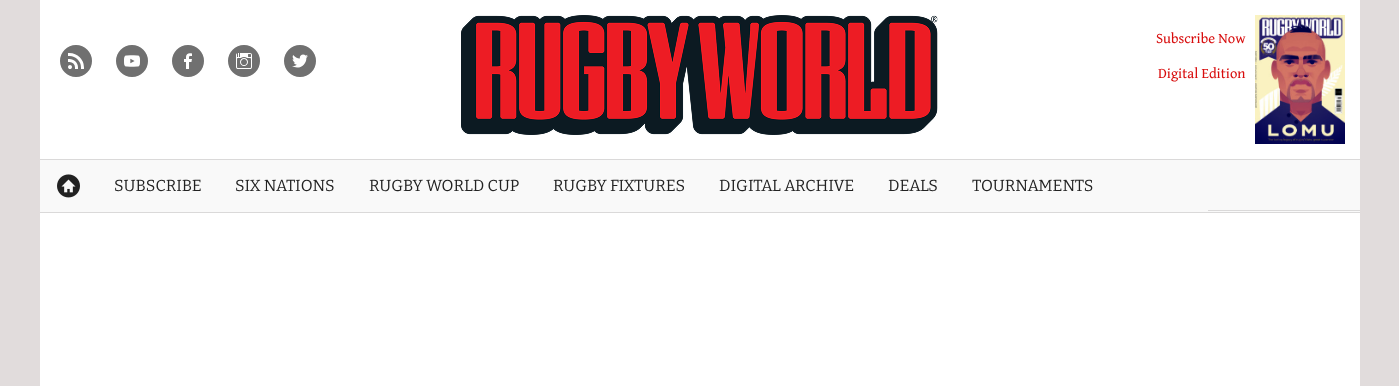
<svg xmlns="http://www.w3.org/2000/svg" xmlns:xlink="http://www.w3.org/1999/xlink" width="1399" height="386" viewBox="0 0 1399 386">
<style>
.cls-1{font:32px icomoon;fill:#707070}
.cls-2{font:14.5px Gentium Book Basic;fill:#d80d0d}
.cls-3{font:100 16px Bitter;fill:#222222}
</style>
<rect width="100%" height="100%" fill="#e1dcdc"/>
<rect fill="#ffffff" x="40" y="0" width="1320" height="386"/>
<image xlink:href="image0.png" x="461" y="15" width="477" height="120"/>
<image xlink:href="image1.png" x="1255" y="15" width="90" height="129"/>
<rect fill="#f9f9f9" x="40" y="211" width="1320" height="1"/>
<rect fill="#dad9d9" x="40" y="159" width="1320" height="1"/>
<rect fill="#dad9d9" x="40" y="212" width="1320" height="1"/>
<rect fill="#f9f9f9" x="1208" y="160" width="152" height="50"/>
<rect fill="#dad9d9" x="1208" y="210" width="152" height="1"/>
<rect fill="#f9f9f9" x="40" y="160" width="1168" height="51"/>
<image xlink:href="image2.png" x="57" y="174" width="23" height="24"/>
<text class="cls-1" x="60" y="75">r</text>
<text class="cls-1" x="116" y="75">y</text>
<text class="cls-1" x="172" y="75">f</text>
<text class="cls-1" x="228" y="75">i</text>
<text class="cls-1" x="284" y="75">t</text>
<text class="cls-2" x="1156" y="43">Subscribe Now</text>
<text class="cls-2" x="1158" y="78">Digital Edition</text>
<text class="cls-3" x="114" y="191">SUBSCRIBE</text>
<text class="cls-3" x="235" y="191">SIX NATIONS</text>
<text class="cls-3" x="369" y="191">RUGBY WORLD CUP</text>
<text class="cls-3" x="553" y="191">RUGBY FIXTURES</text>
<text class="cls-3" x="719" y="191">DIGITAL ARCHIVE</text>
<text class="cls-3" x="888" y="191">DEALS</text>
<text class="cls-3" x="972" y="191">TOURNAMENTS</text>
</svg>
